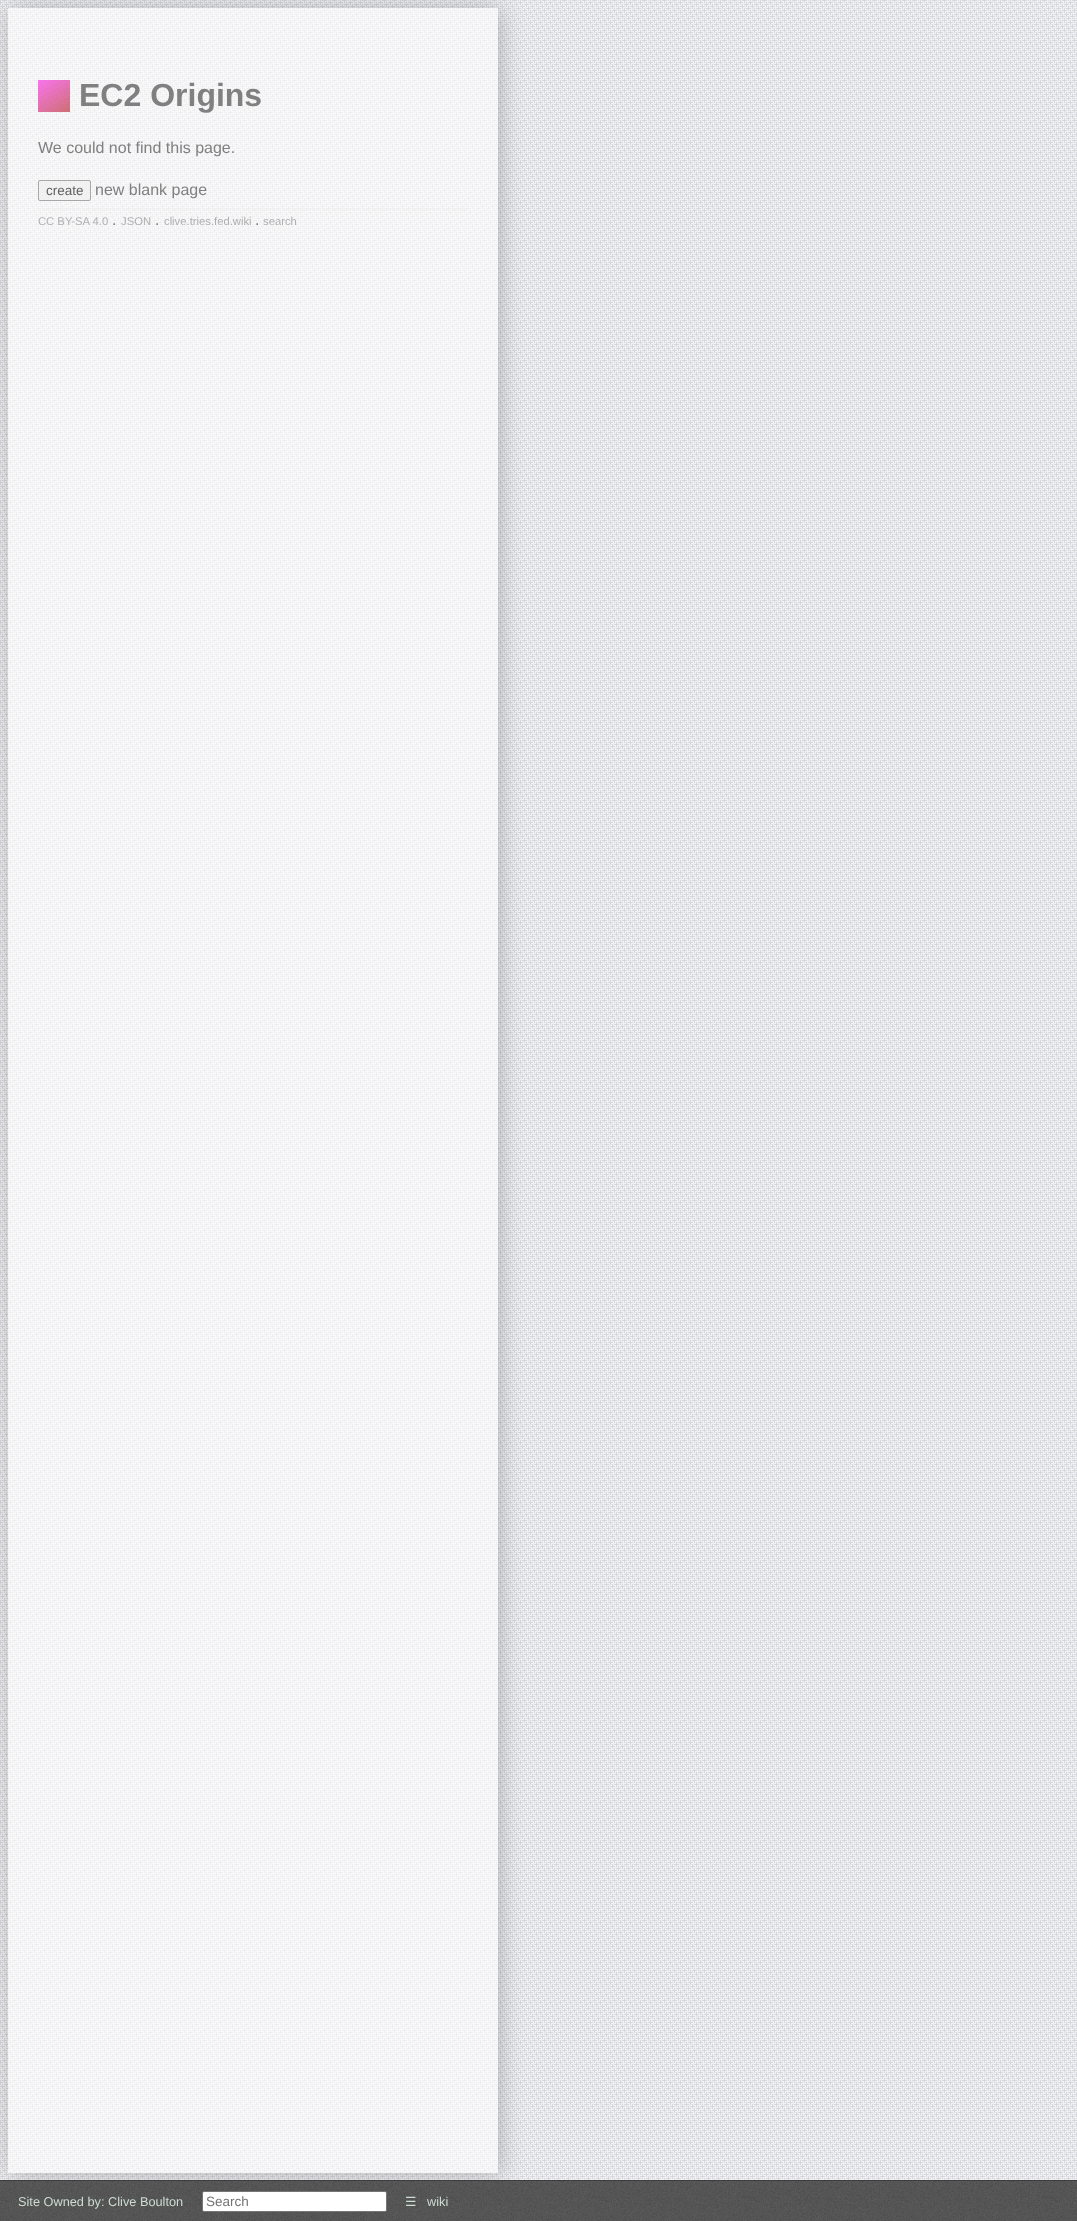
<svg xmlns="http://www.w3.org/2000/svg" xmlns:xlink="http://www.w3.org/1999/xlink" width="1077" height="2221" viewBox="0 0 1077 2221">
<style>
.cls-1{font:bold 32px Liberation Sans;fill:#808081}
.cls-2{font:16px Liberation Sans;fill:#808081}
.cls-3{font:13.5px Liberation Sans;fill:#616161}
.cls-4{font:11.25px Liberation Sans;fill:#afafaf}
.cls-5{font:12.75px Liberation Sans;fill:#ccdcd2}
.cls-6{font:13.5px Liberation Sans;fill:#757575}
.cls-7{font:12.75px DejaVu Sans;fill:#ccdcd2}
</style>
<defs>
<clipPath id="clip1"><path d="M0 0H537V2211H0ZM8 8H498V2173H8Z" clip-rule="evenodd"/></clipPath>
</defs>
<rect width="100%" height="100%" fill="#ffffff"/>
<image xlink:href="image0.png" x="0" y="0" width="1077" height="2180"/>
<g clip-path="url(#clip1)">
<rect fill="#000000" fill-opacity="0.24" filter="blur(12px)" x="10" y="9" width="490" height="2165"/>
</g>
<rect fill="#ffffff" fill-opacity="0.6" x="8" y="8" width="490" height="2165"/>
<image xlink:href="image1.png" x="38" y="80" width="32" height="32"/>
<rect fill="#efefef" fill-opacity="0.6" x="38" y="180" width="53" height="21" rx="2"/>
<rect fill="none" stroke="#767676" stroke-opacity="0.6" x="38.5" y="180.5" width="52" height="20" rx="1.5"/>
<rect fill="#eeeeee" fill-opacity="0.6" x="38" y="208" width="430" height="2"/>
<image xlink:href="image2.png" x="0" y="2181" width="1077" height="40"/>
<rect fill="#3d3c43" x="0" y="2180" width="1077" height="1"/>
<rect fill="#ffffff" stroke="#767676" x="202.5" y="2191.5" width="184" height="20" rx="1.5"/>
<text class="cls-1" x="79" y="106">EC2 Origins</text>
<text class="cls-2" x="38" y="153">We could not find this page.</text>
<text class="cls-3" x="46" y="195">create</text>
<text class="cls-2" x="95" y="195">new blank page</text>
<text class="cls-4" x="38" y="225">CC BY-SA 4.0</text>
<text class="cls-2" x="112" y="225">.</text>
<text class="cls-4" x="121" y="225">JSON</text>
<text class="cls-2" x="155" y="225">.</text>
<text class="cls-4" x="164" y="225">clive.tries.fed.wiki</text>
<text class="cls-2" x="255" y="225">.</text>
<text class="cls-4" x="263" y="225">search</text>
<text class="cls-5" x="18" y="2206">Site Owned by: Clive Boulton</text>
<text class="cls-6" x="206" y="2206">Search</text>
<text class="cls-7" x="405" y="2206">☰</text>
<text class="cls-5" x="427" y="2206">wiki</text>
</svg>
